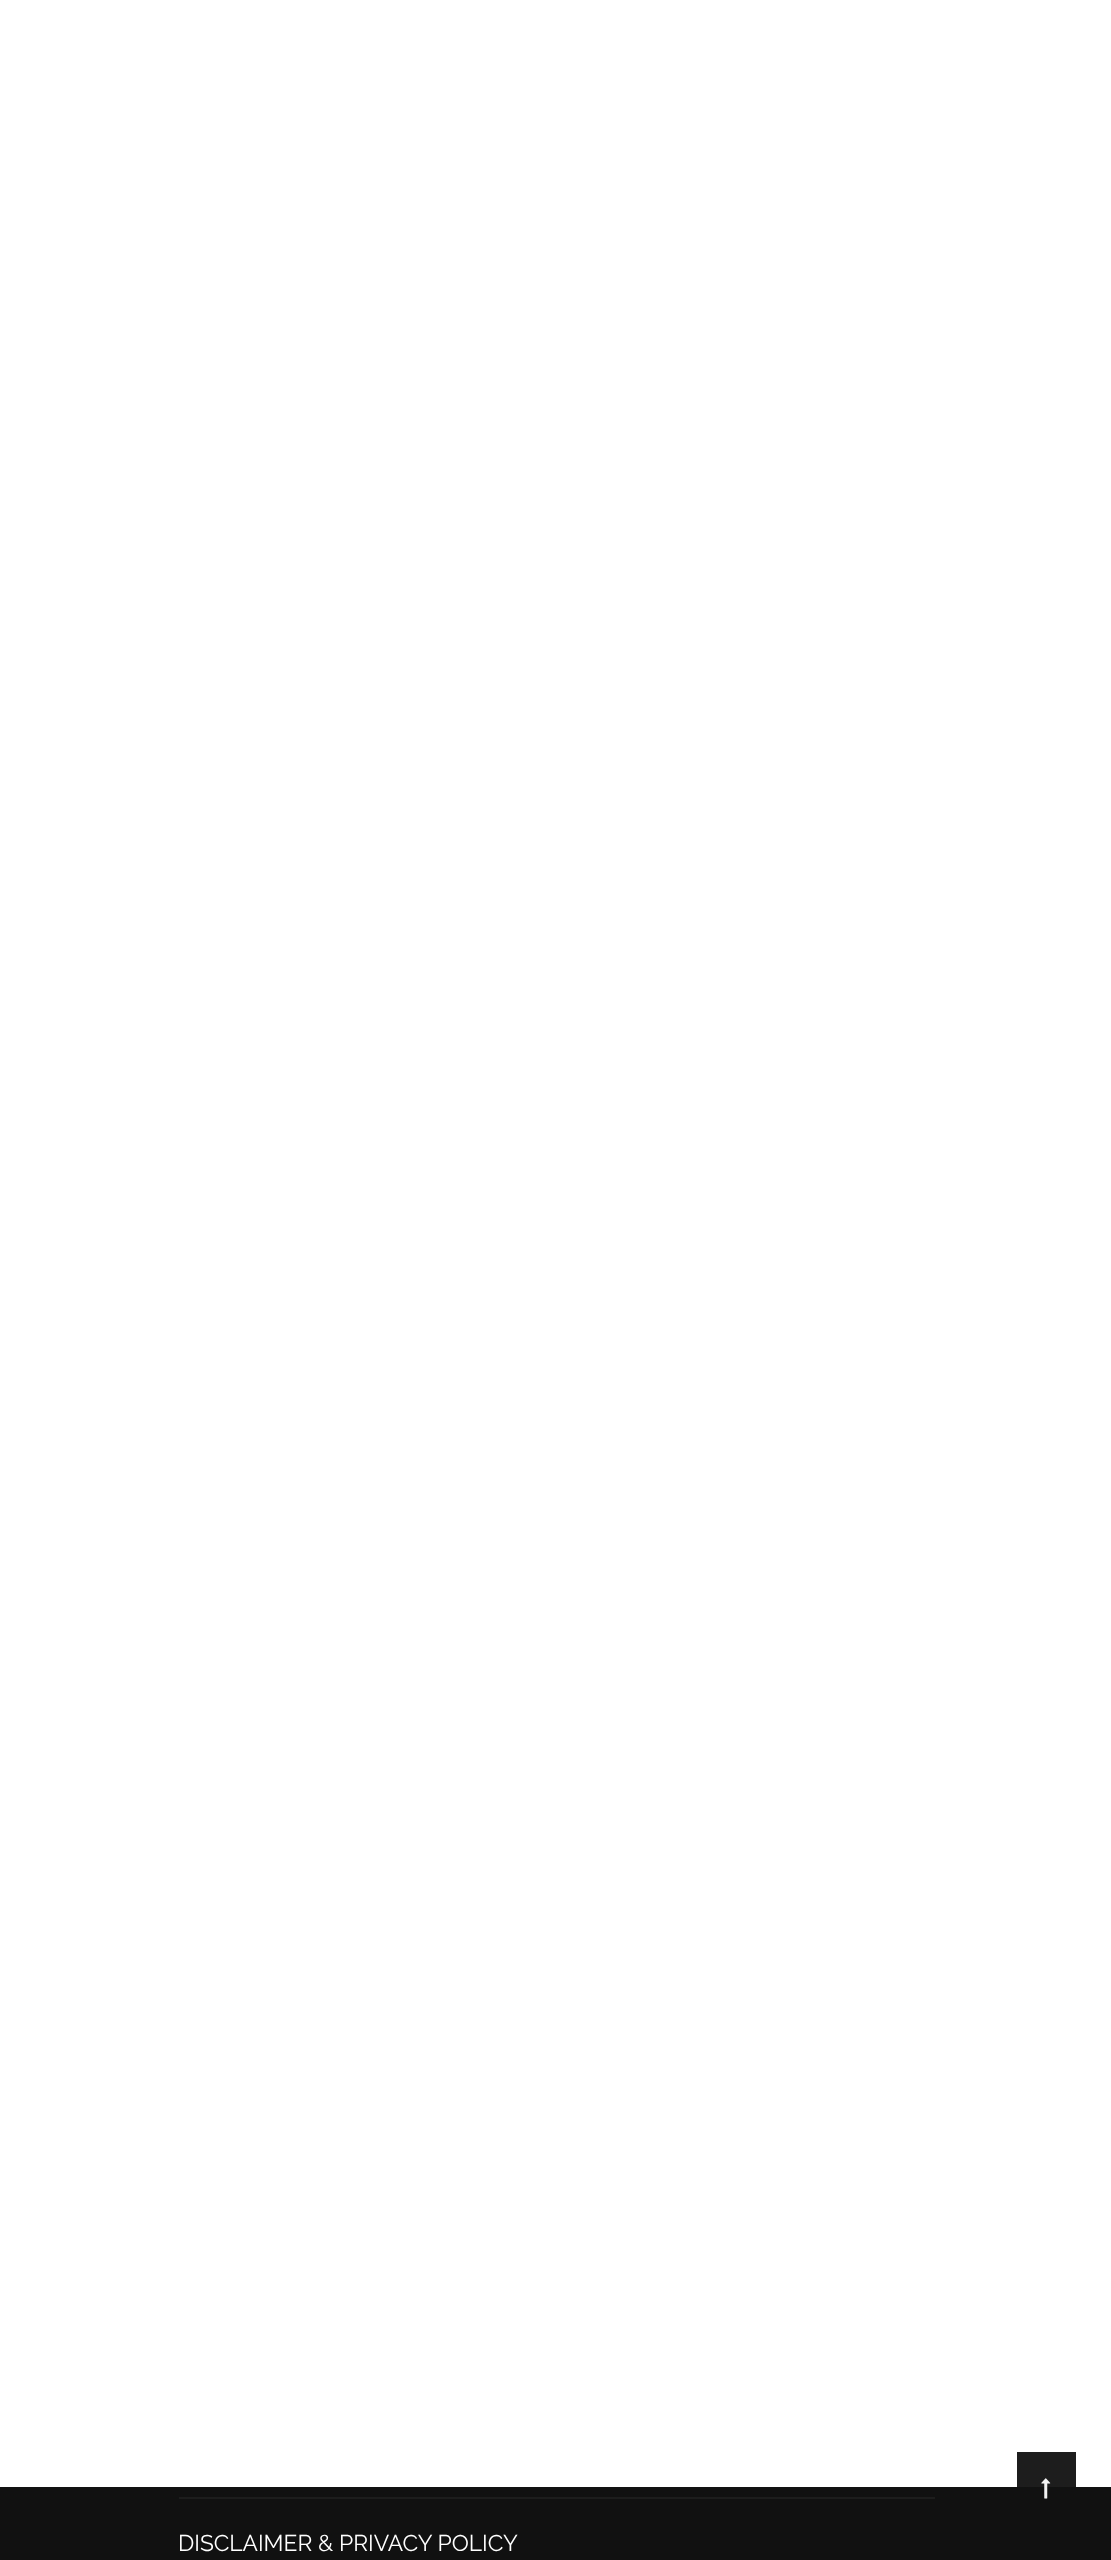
<svg xmlns="http://www.w3.org/2000/svg" xmlns:xlink="http://www.w3.org/1999/xlink" width="1111" height="2560" viewBox="0 0 1111 2560">
<style>
.cls-1{font:22.75px Raleway;fill:#ffffff}
</style>
<rect width="100%" height="100%" fill="#111111"/>
<rect fill="#ffffff" x="0" y="0" width="1111" height="2487"/>
<rect fill="#1d1d1d" x="1017" y="2452" width="59" height="35"/>
<image xlink:href="image0.png" x="1041" y="2478" width="10" height="21"/>
<rect fill="#1d1d1d" x="179" y="2497" width="756" height="2"/>
<text class="cls-1" x="178" y="2551">DISCLAIMER &amp; PRIVACY POLICY</text>
</svg>
